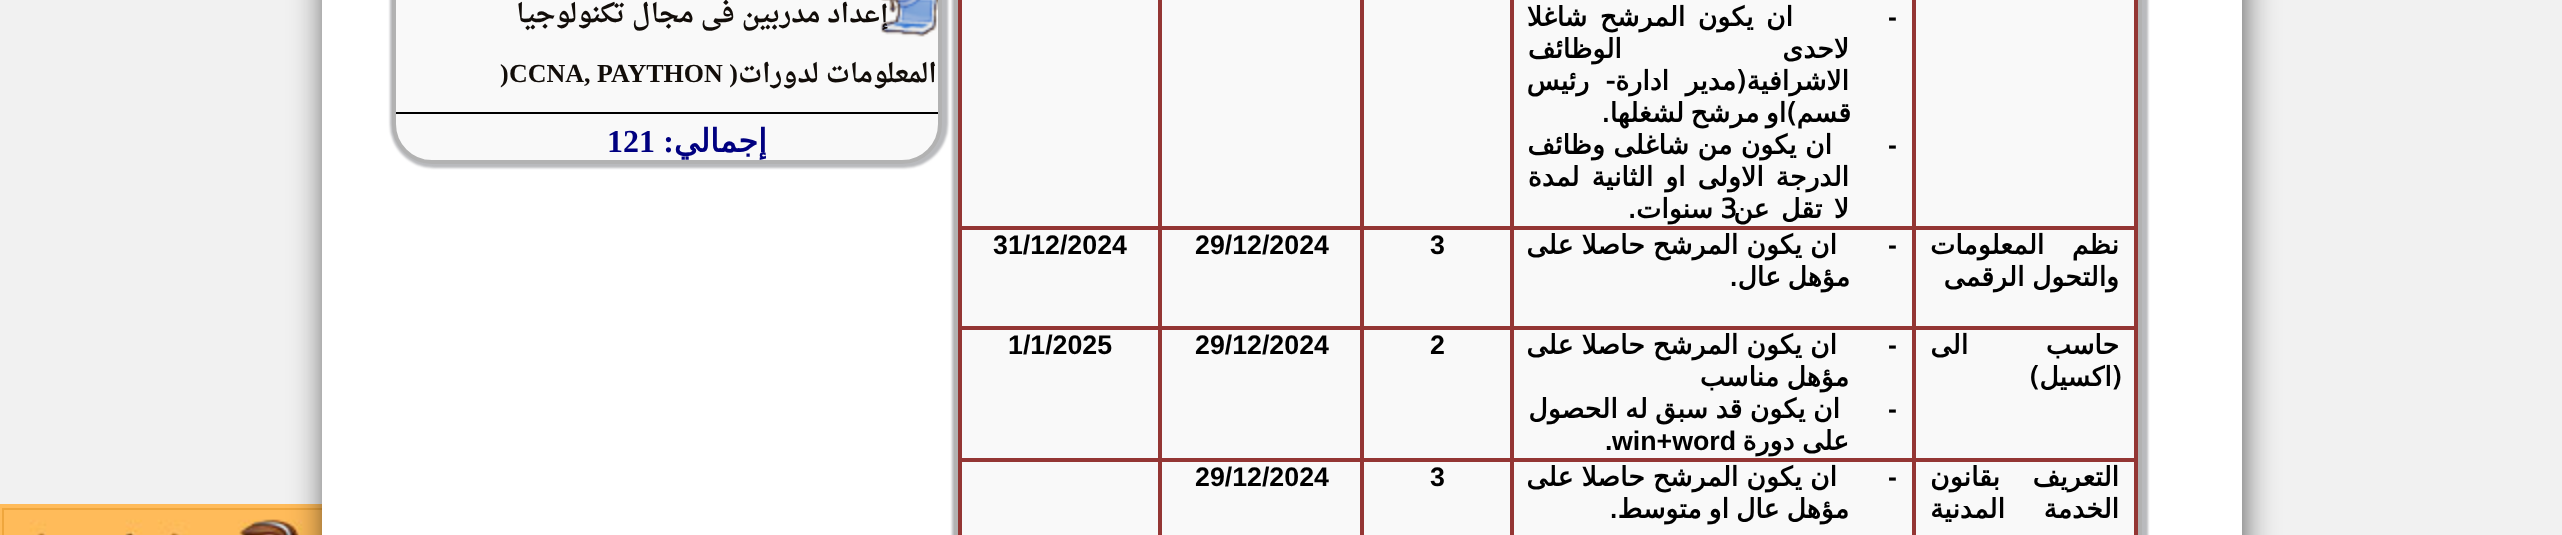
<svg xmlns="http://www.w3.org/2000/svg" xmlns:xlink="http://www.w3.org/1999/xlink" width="2562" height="535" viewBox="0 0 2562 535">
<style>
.cls-1{font:bold 26.75px Liberation Sans;fill:#000000}
.cls-2{font:bold 26.75px DejaVu Sans;direction:rtl;fill:#000000}
.cls-3{font:bold 26.75px DejaVu Sans;fill:#000000}
.cls-4{font:bold 26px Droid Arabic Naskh;direction:rtl;fill:#120d09}
.cls-5{font:bold 26px Liberation Serif;direction:rtl;fill:#120d09}
.cls-6{font:bold 26px Liberation Serif;fill:#120d09}
.cls-7{font:bold 32px DejaVu Sans;direction:rtl;fill:#000080}
.cls-8{font:bold 32px Liberation Serif;direction:rtl;fill:#000080}
.cls-9{font:bold 32px Liberation Serif;fill:#000080}
</style>
<rect width="100%" height="100%" fill="#f1f1f1"/>
<image xlink:href="image1.png" x="0" y="504" width="322" height="31"/>
<rect fill="none" stroke="#efa63d" stroke-width="2" x="3" y="509" width="328" height="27"/>
<rect fill="#000000" filter="blur(20px)" x="334" y="-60" width="1900" height="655"/>
<rect fill="#ffffff" x="322" y="0" width="1920" height="535"/>
<rect fill="#b9babd" filter="blur(1px)" x="952" y="-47" width="1196" height="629" rx="44"/>
<rect fill="#f9f9f9" x="962" y="0" width="1172" height="535"/>
<rect fill="none" stroke="#b2b2b2" stroke-width="4" x="956" y="-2" width="1184" height="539"/>
<rect fill="#943634" x="2134" y="0" width="4" height="535"/>
<rect fill="#943634" x="1912" y="458" width="4" height="77"/>
<rect fill="#943634" x="1510" y="458" width="4" height="77"/>
<rect fill="#943634" x="1360" y="458" width="4" height="77"/>
<rect fill="#943634" x="1158" y="458" width="4" height="77"/>
<rect fill="#943634" x="958" y="458" width="4" height="77"/>
<rect fill="#943634" x="958" y="458" width="1180" height="4"/>
<rect fill="#943634" x="1912" y="326" width="4" height="136"/>
<rect fill="#943634" x="1510" y="326" width="4" height="136"/>
<rect fill="#943634" x="1360" y="326" width="4" height="136"/>
<rect fill="#943634" x="1158" y="326" width="4" height="136"/>
<rect fill="#943634" x="958" y="326" width="4" height="136"/>
<rect fill="#943634" x="958" y="326" width="1180" height="4"/>
<rect fill="#943634" x="1912" y="226" width="4" height="104"/>
<rect fill="#943634" x="1510" y="226" width="4" height="104"/>
<rect fill="#943634" x="1360" y="226" width="4" height="104"/>
<rect fill="#943634" x="1158" y="226" width="4" height="104"/>
<rect fill="#943634" x="958" y="226" width="4" height="104"/>
<rect fill="#943634" x="958" y="226" width="1180" height="4"/>
<rect fill="#943634" x="958" y="0" width="4" height="230"/>
<rect fill="#943634" x="1912" y="0" width="4" height="230"/>
<rect fill="#943634" x="1510" y="0" width="4" height="230"/>
<rect fill="#943634" x="1360" y="0" width="4" height="230"/>
<rect fill="#943634" x="1158" y="0" width="4" height="230"/>
<rect fill="#b9babd" filter="blur(1px)" x="390" y="-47" width="558" height="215" rx="44"/>
<rect fill="#f9f9f9" stroke="#b2b2b2" stroke-width="4" x="394" y="-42" width="546" height="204" rx="38"/>
<image xlink:href="image0.png" x="880" y="0" width="58" height="37"/>
<rect fill="#000000" x="396" y="112" width="542" height="2"/>
<text class="cls-1" x="1888" y="26">-</text>
<text class="cls-2" x="1793" y="26" word-spacing="4">ان يكون المرشح شاغلا</text>
<text class="cls-2"><tspan x="1849" y="58" word-spacing="152">لاحدى الوظائف</tspan><tspan x="1849" y="90" word-spacing="8">الاشرافية(مدير ادارة- رئيس</tspan></text>
<text class="cls-2" x="1851" y="122" word-spacing="-2">قسم)او مرشح لشغلها.</text>
<text class="cls-1" x="1888" y="154">-</text>
<text class="cls-2" x="1832" y="154">ان يكون من شاغلى وظائف</text>
<text class="cls-2"><tspan x="1849" y="186" word-spacing="3.5">الدرجة الاولى او الثانية لمدة</tspan><tspan x="1849" y="218" word-spacing="3">لا تقل عن</tspan></text>
<text class="cls-3" x="1720" y="218">3</text>
<text class="cls-2" x="1713" y="218">سنوات.</text>
<text class="cls-2"><tspan x="2119" y="254" word-spacing="19">نظم المعلومات</tspan><tspan x="2119" y="286" word-spacing="-1">والتحول الرقمى</tspan></text>
<text class="cls-1" x="1888" y="254">-</text>
<text class="cls-2" x="1837" y="254" word-spacing="-0.5">ان يكون المرشح حاصلا على</text>
<text class="cls-2" x="1850" y="286" word-spacing="-2">مؤهل عال.</text>
<text class="cls-1" x="1430" y="254">3</text>
<text class="cls-1" x="1195" y="254">29/12/2024</text>
<text class="cls-1" x="993" y="254">31/12/2024</text>
<text class="cls-2" x="2119" y="354" word-spacing="69">حاسب الى</text>
<text class="cls-2" x="2122" y="386">(اكسيل)</text>
<text class="cls-1" x="1888" y="354">-</text>
<text class="cls-2" x="1837" y="354" word-spacing="-0.5">ان يكون المرشح حاصلا على</text>
<text class="cls-2" x="1849" y="386" word-spacing="-1">مؤهل مناسب</text>
<text class="cls-1" x="1888" y="418">-</text>
<text class="cls-2" x="1840" y="418" word-spacing="-1">ان يكون قد سبق له الحصول</text>
<text class="cls-2" x="1849" y="450" word-spacing="-1">على دورة</text>
<text class="cls-1" x="1612" y="450">win+word</text>
<text class="cls-1" x="1605" y="450">.</text>
<text class="cls-1" x="1430" y="354">2</text>
<text class="cls-1" x="1195" y="354">29/12/2024</text>
<text class="cls-1" x="1008" y="354">1/1/2025</text>
<text class="cls-2"><tspan x="2119" y="486" word-spacing="24">التعريف بقانون</tspan><tspan x="2119" y="518" word-spacing="30">الخدمة المدنية</tspan></text>
<text class="cls-1" x="1888" y="486">-</text>
<text class="cls-2" x="1837" y="486" word-spacing="-0.5">ان يكون المرشح حاصلا على</text>
<text class="cls-2" x="1849" y="518" word-spacing="-1.5">مؤهل عال او متوسط.</text>
<text class="cls-1" x="1430" y="486">3</text>
<text class="cls-1" x="1195" y="486">29/12/2024</text>
<text class="cls-4" x="889" y="22">إعداد مدربين فى مجال تكنولوجيا</text>
<text class="cls-4" x="937" y="82">المعلومات لدورات</text>
<text class="cls-5" x="738" y="82">(</text>
<text class="cls-6" x="509" y="82">CCNA, PAYTHON</text>
<text class="cls-6" x="500" y="82">)</text>
<text class="cls-7" x="767" y="152">إجمالي</text>
<text class="cls-8" x="674" y="152">:</text>
<text class="cls-9" x="607" y="152">121</text>
</svg>
